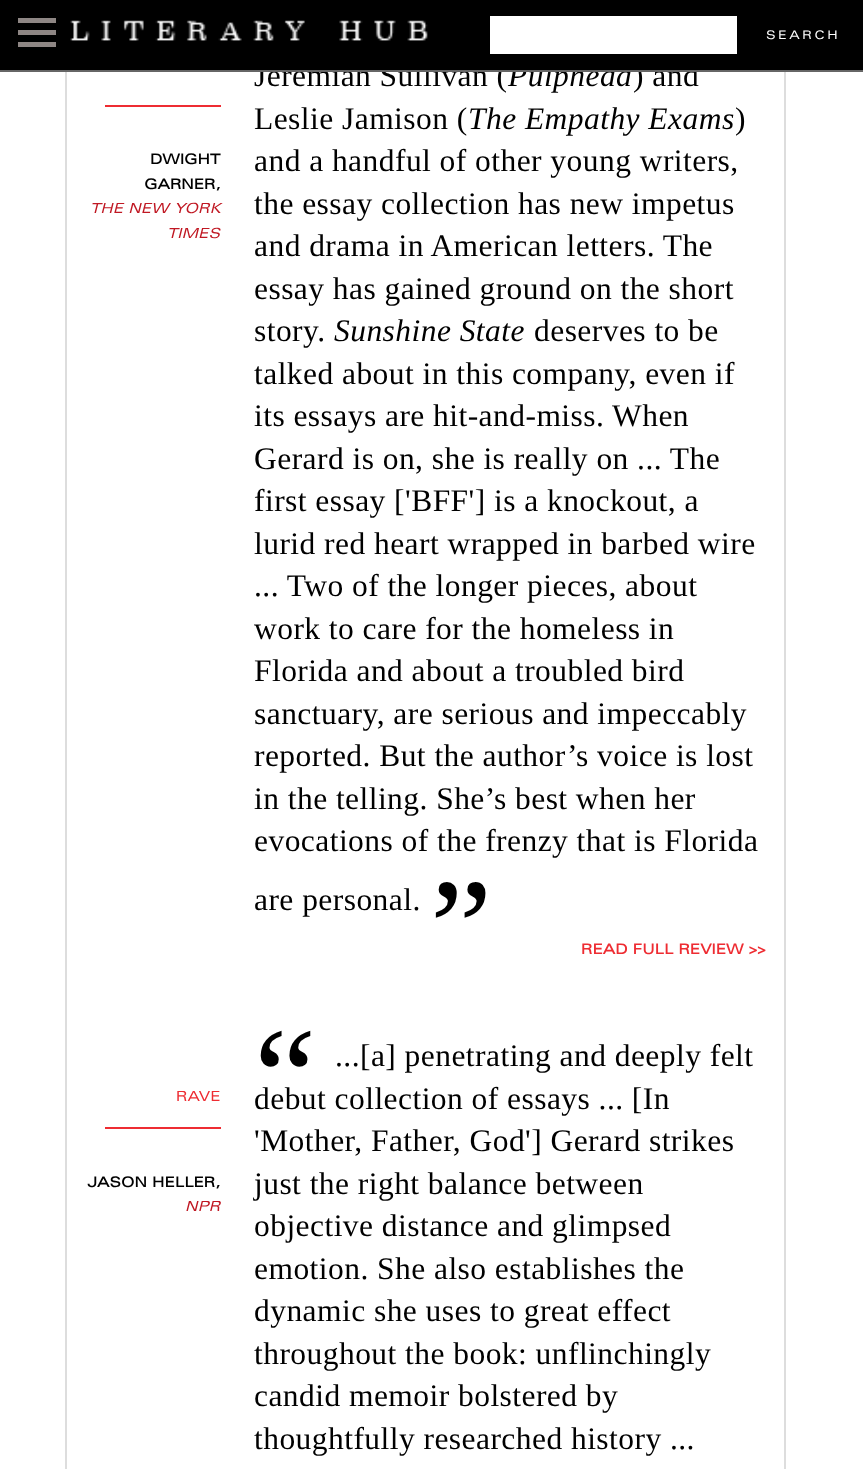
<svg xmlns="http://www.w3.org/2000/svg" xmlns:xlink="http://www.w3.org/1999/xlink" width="863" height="1469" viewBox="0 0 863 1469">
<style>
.cls-1{font:11.75px Univers;letter-spacing:2.5px;fill:#ffffff}
.cls-2{font:bold 14px Univers;fill:#000000}
.cls-3{font:italic 14px Univers;fill:#c01823}
.cls-4{font:31.5px Liberation Serif;letter-spacing:0.45px;fill:#000000}
.cls-5{font:italic 31.5px Liberation Serif;letter-spacing:0.45px;fill:#000000}
.cls-6{font:140px Liberation Serif;letter-spacing:0.45px;fill:#000000}
.cls-7{font:bold 14px Univers;fill:#ee2c32}
.cls-8{font:14px Univers;fill:#ee2c32}
</style>
<rect width="100%" height="100%" fill="#ffffff"/>
<rect fill="none" stroke="#dddddd" stroke-width="2" x="66" y="-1" width="719" height="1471"/>
<rect fill="#000000" x="0" y="0" width="863" height="70"/>
<rect fill="#8e8684" x="18" y="18" width="38" height="5"/>
<rect fill="#8e8684" x="18" y="30" width="38" height="5"/>
<rect fill="#8e8684" x="18" y="42" width="38" height="5"/>
<image xlink:href="image0.png" x="70" y="20" width="358" height="21"/>
<rect fill="#ffffff" x="490" y="16" width="247" height="38"/>
<rect fill="#ee2c32" x="105" y="105" width="116" height="2"/>
<rect fill="#ee2c32" x="105" y="1127" width="116" height="2"/>
<text class="cls-1" x="766" y="39">SEARCH</text>
<text class="cls-2" x="150" y="164">DWIGHT</text>
<text class="cls-2" x="144" y="189">GARNER,</text>
<text class="cls-3" x="90" y="213">THE NEW YORK</text>
<text class="cls-3" x="167" y="238">TIMES</text>
<text class="cls-4" x="254" y="86">Jeremiah Sullivan (</text>
<text class="cls-5" x="508" y="86">Pulphead</text>
<text class="cls-4" x="633" y="86">) and</text>
<rect fill="#666666" x="0" y="70" width="863" height="2"/>
<text class="cls-4" x="254" y="129">Leslie Jamison (</text>
<text class="cls-5" x="468" y="129">The Empathy Exams</text>
<text class="cls-4" x="735" y="129">)</text>
<text class="cls-4"><tspan x="254" y="171">and a handful of other young writers,</tspan><tspan x="254" y="214">the essay collection has new impetus</tspan><tspan x="254" y="256">and drama in American letters. The</tspan><tspan x="254" y="299">essay has gained ground on the short</tspan><tspan x="254" y="341">story.</tspan></text>
<text class="cls-5" x="334" y="341">Sunshine State</text>
<text class="cls-4" x="534" y="341">deserves to be</text>
<text class="cls-4"><tspan x="254" y="384">talked about in this company, even if</tspan><tspan x="254" y="426">its essays are hit-and-miss. When</tspan><tspan x="254" y="469">Gerard is on, she is really on ... The</tspan><tspan x="254" y="511">first essay ['BFF'] is a knockout, a</tspan><tspan x="254" y="554">lurid red heart wrapped in barbed wire</tspan><tspan x="254" y="596">... Two of the longer pieces, about</tspan><tspan x="254" y="639">work to care for the homeless in</tspan><tspan x="254" y="681">Florida and about a troubled bird</tspan><tspan x="254" y="724">sanctuary, are serious and impeccably</tspan><tspan x="254" y="766">reported. But the author’s voice is lost</tspan><tspan x="254" y="809">in the telling. She’s best when her</tspan><tspan x="254" y="851">evocations of the frenzy that is Florida</tspan><tspan x="254" y="910">are personal.</tspan></text>
<text class="cls-6" x="430" y="975">”</text>
<text class="cls-7" x="581" y="954">READ FULL REVIEW &gt;&gt;</text>
<text class="cls-8" x="176" y="1101">RAVE</text>
<text class="cls-2" x="87" y="1187">JASON HELLER,</text>
<text class="cls-3" x="185" y="1211">NPR</text>
<text class="cls-6" x="254" y="1124">“</text>
<text class="cls-4" x="335" y="1066">...[a] penetrating and deeply felt</text>
<text class="cls-4"><tspan x="254" y="1109">debut collection of essays ... [In</tspan><tspan x="254" y="1151">'Mother, Father, God'] Gerard strikes</tspan><tspan x="254" y="1194">just the right balance between</tspan><tspan x="254" y="1236">objective distance and glimpsed</tspan><tspan x="254" y="1279">emotion. She also establishes the</tspan><tspan x="254" y="1321">dynamic she uses to great effect</tspan><tspan x="254" y="1364">throughout the book: unflinchingly</tspan><tspan x="254" y="1406">candid memoir bolstered by</tspan><tspan x="254" y="1449">thoughtfully researched history ...</tspan></text>
</svg>
